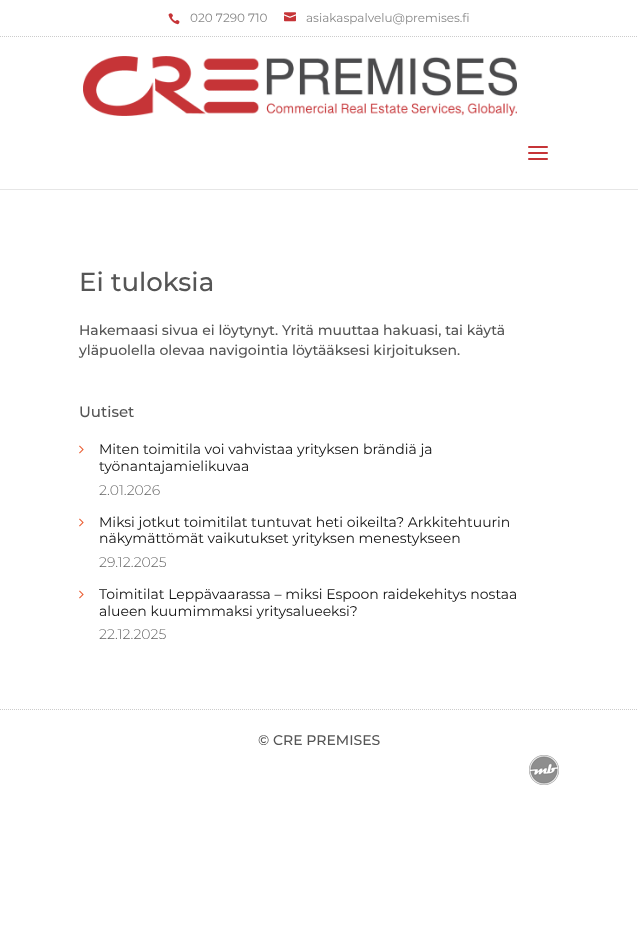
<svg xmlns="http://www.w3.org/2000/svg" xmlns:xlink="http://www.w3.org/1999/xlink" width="638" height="939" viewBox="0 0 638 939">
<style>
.cls-1{font:100 12px 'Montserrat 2';fill:#888888}
.cls-2{font:100 26px Montserrat;fill:#555555}
.cls-3{font:100 14px Montserrat;fill:#555555}
.cls-4{font:100 15px Montserrat;fill:#555555}
.cls-5{font:100 14px 'Montserrat 2';fill:#111111}
.cls-6{font:100 14px 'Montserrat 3';fill:#666666}
</style>
<rect width="100%" height="100%" fill="#ffffff"/>
<path fill="none" stroke="#cccccc" stroke-dasharray="1 1" d="M0 36.5H638"/>
<image xlink:href="image0.png" x="168" y="13" width="12" height="12"/>
<image xlink:href="image1.png" x="284" y="12" width="12" height="10"/>
<rect fill="#e6e6e6" x="0" y="189" width="638" height="1"/>
<image xlink:href="image2.png" x="83" y="56" width="434" height="60"/>
<image xlink:href="image3.png" x="528" y="146" width="20" height="14"/>
<image xlink:href="image4.png" x="79" y="445" width="5" height="9"/>
<image xlink:href="image4.png" x="79" y="518" width="5" height="9"/>
<image xlink:href="image4.png" x="79" y="590" width="5" height="9"/>
<path fill="none" stroke="#cccccc" stroke-dasharray="1 1" d="M0 709.5H638"/>
<image xlink:href="image5.png" x="529" y="755" width="30" height="30"/>
<text class="cls-1" x="190" y="22">‌020 7290 710</text>
<text class="cls-1" x="306" y="22">asiakaspalvelu@premises.fi</text>
<text class="cls-2" x="79" y="291">Ei tuloksia</text>
<text class="cls-3"><tspan x="79" y="335">Hakemaasi sivua ei löytynyt. Yritä muuttaa hakuasi, tai käytä</tspan><tspan x="79" y="355">yläpuolella olevaa navigointia löytääksesi kirjoituksen.</tspan></text>
<text class="cls-4" x="79" y="417">Uutiset</text>
<text class="cls-5"><tspan x="99" y="454">Miten toimitila voi vahvistaa yrityksen brändiä ja</tspan><tspan x="99" y="471">työnantajamielikuvaa</tspan></text>
<text class="cls-6" x="99" y="495">2.01.2026</text>
<text class="cls-5"><tspan x="99" y="527">Miksi jotkut toimitilat tuntuvat heti oikeilta? Arkkitehtuurin</tspan><tspan x="99" y="543">näkymättömät vaikutukset yrityksen menestykseen</tspan></text>
<text class="cls-6" x="99" y="567">29.12.2025</text>
<text class="cls-5"><tspan x="99" y="599">Toimitilat Leppävaarassa – miksi Espoon raidekehitys nostaa</tspan><tspan x="99" y="616">alueen kuumimmaksi yritysalueeksi?</tspan></text>
<text class="cls-6" x="99" y="639">22.12.2025</text>
<text class="cls-3" x="258" y="745">© CRE PREMISES</text>
</svg>
